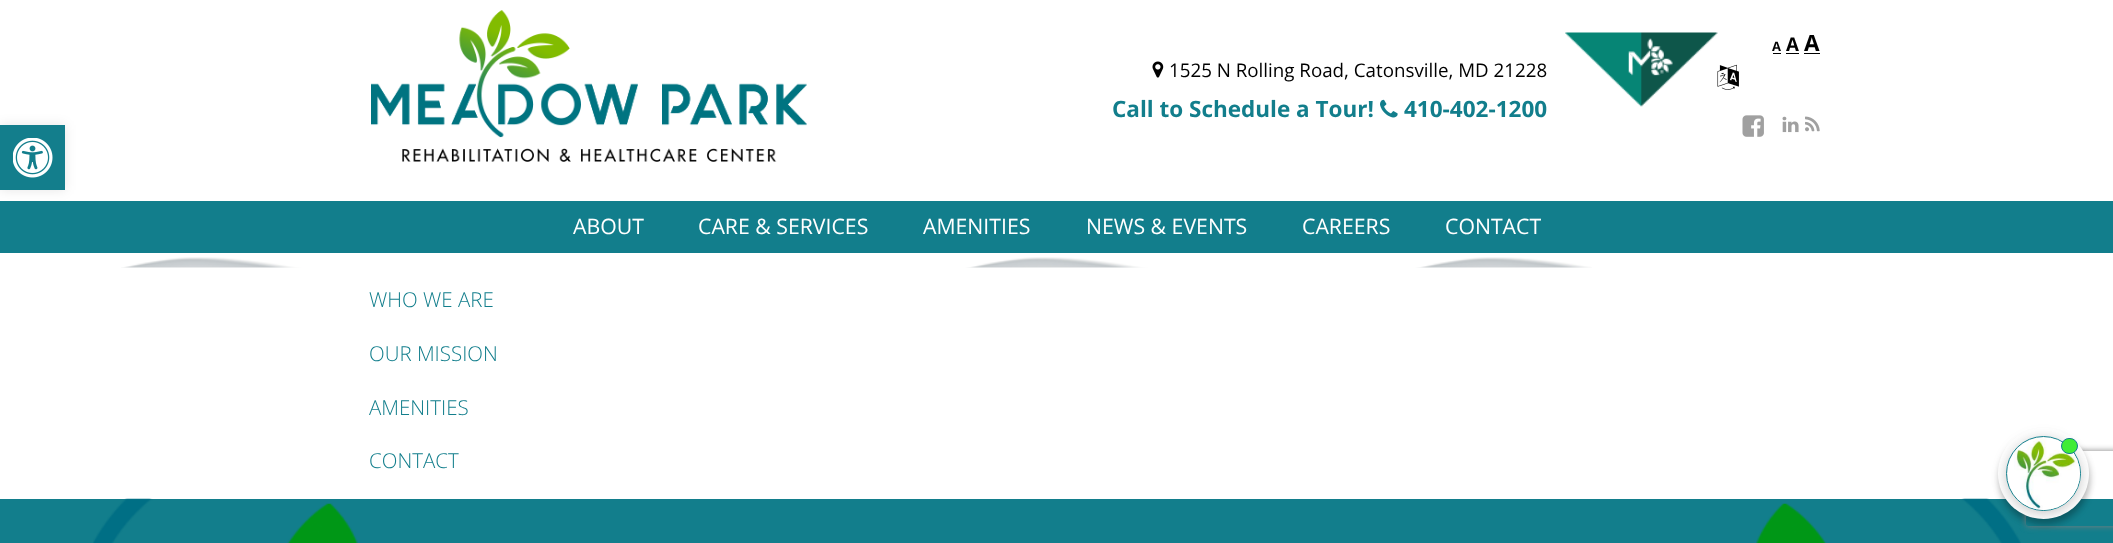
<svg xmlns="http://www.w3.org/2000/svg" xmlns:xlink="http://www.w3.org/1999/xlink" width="2113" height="543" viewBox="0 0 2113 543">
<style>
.cls-1{font:bold 13px Open Sans;fill:#000000}
.cls-2{font:bold 18.75px Open Sans;fill:#000000}
.cls-3{font:bold 22.5px Open Sans;fill:#000000}
.cls-4{font:18.75px Open Sans;fill:#000000}
.cls-5{font:bold 22.5px Open Sans;fill:#127e8c}
.cls-6{font:21.25px Open Sans;fill:#ffffff}
.cls-7{font:300 20.5px Open Sans;fill:#127e8c}
</style>
<defs>
<clipPath id="clip1"><path d="M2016 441H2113V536H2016ZM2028.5 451H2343.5C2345 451 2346 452 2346 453.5V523.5C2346 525 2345 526 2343.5 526H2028.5C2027 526 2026 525 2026 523.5V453.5C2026 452 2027 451 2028.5 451Z" clip-rule="evenodd"/></clipPath>
<clipPath id="clip2"><path d="M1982 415H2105V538H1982ZM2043.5 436C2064 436 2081 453 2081 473.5C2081 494 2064 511 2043.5 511C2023 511 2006 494 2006 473.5C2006 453 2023 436 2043.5 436Z" clip-rule="evenodd"/></clipPath>
</defs>
<rect width="100%" height="100%" fill="#ffffff"/>
<rect fill="#127e8c" x="0" y="201" width="2113" height="52"/>
<rect fill="#000000" fill-opacity="0.1" filter="blur(6px)" x="0" y="125" width="65" height="65"/>
<rect fill="#137e8c" x="0" y="125" width="65" height="65"/>
<image xlink:href="image0.png" x="13" y="138" width="40" height="40"/>
<image xlink:href="image1.png" x="371" y="10" width="436" height="152"/>
<image xlink:href="image2.png" x="1565" y="32" width="153" height="75"/>
<rect fill="#000000" x="1773" y="53" width="8" height="1"/>
<rect fill="#000000" x="1786" y="53" width="13" height="1"/>
<rect fill="#000000" x="1804" y="53" width="16" height="1"/>
<image xlink:href="image3.png" x="1152" y="61" width="12" height="17"/>
<image xlink:href="image4.png" x="1380" y="99" width="18" height="19"/>
<image xlink:href="image5.png" x="1717" y="64" width="22" height="26"/>
<image xlink:href="image6.png" x="1742" y="115" width="22" height="22"/>
<image xlink:href="image7.png" x="1782" y="116" width="17" height="17"/>
<image xlink:href="image8.png" x="1805" y="116" width="15" height="16"/>
<image xlink:href="image9.png" x="121" y="257" width="1471" height="11"/>
<rect fill="#127e8c" x="0" y="499" width="2113" height="44"/>
<image xlink:href="image12.png" x="1756" y="498" width="265" height="45"/>
<rect fill="#000000" fill-opacity="0.25" filter="blur(3px)" x="1999" y="434" width="91" height="91" rx="45.5"/>
<g clip-path="url(#clip1)">
<rect fill="#808080" filter="blur(3px)" x="2026" y="451" width="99" height="75" rx="2.5"/>
</g>
<circle fill="#ffffff" cx="2043.5" cy="473.5" r="45.5"/>
<g clip-path="url(#clip2)">
<rect fill="#000000" fill-opacity="0.16" filter="blur(7.5px)" x="2006" y="439" width="75" height="75" rx="37.5"/>
</g>
<rect fill="#000000" fill-opacity="0.06" filter="blur(4px)" x="2006" y="438" width="75" height="75" rx="37.5"/>
<circle fill="none" stroke="#137f8c" cx="2043.5" cy="473.5" r="37"/>
<image xlink:href="image10.png" x="2008" y="438" width="72" height="72"/>
<rect fill="#40ec36" stroke="#137f8c" x="2061.5" y="438.5" width="16" height="15" rx="7.5"/>
<image xlink:href="image11.png" x="93" y="498" width="265" height="45"/>
<text class="cls-1" x="1772" y="51">A</text>
<text class="cls-2" x="1786" y="51">A</text>
<text class="cls-3" x="1804" y="51">A</text>
<text class="cls-4" x="1169" y="77">1525 N Rolling Road, Catonsville, MD 21228</text>
<text class="cls-5" x="1112" y="117">Call to Schedule a Tour!</text>
<text class="cls-5" x="1404" y="117">410-402-1200</text>
<text class="cls-6" x="573" y="234">ABOUT</text>
<text class="cls-6" x="698" y="234">CARE &amp; SERVICES</text>
<text class="cls-6" x="923" y="234">AMENITIES</text>
<text class="cls-6" x="1086" y="234">NEWS &amp; EVENTS</text>
<text class="cls-6" x="1302" y="234">CAREERS</text>
<text class="cls-6" x="1445" y="234">CONTACT</text>
<text class="cls-7" x="369" y="307">WHO WE ARE</text>
<text class="cls-7" x="369" y="361">OUR MISSION</text>
<text class="cls-7" x="369" y="415">AMENITIES</text>
<text class="cls-7" x="369" y="468">CONTACT</text>
</svg>
